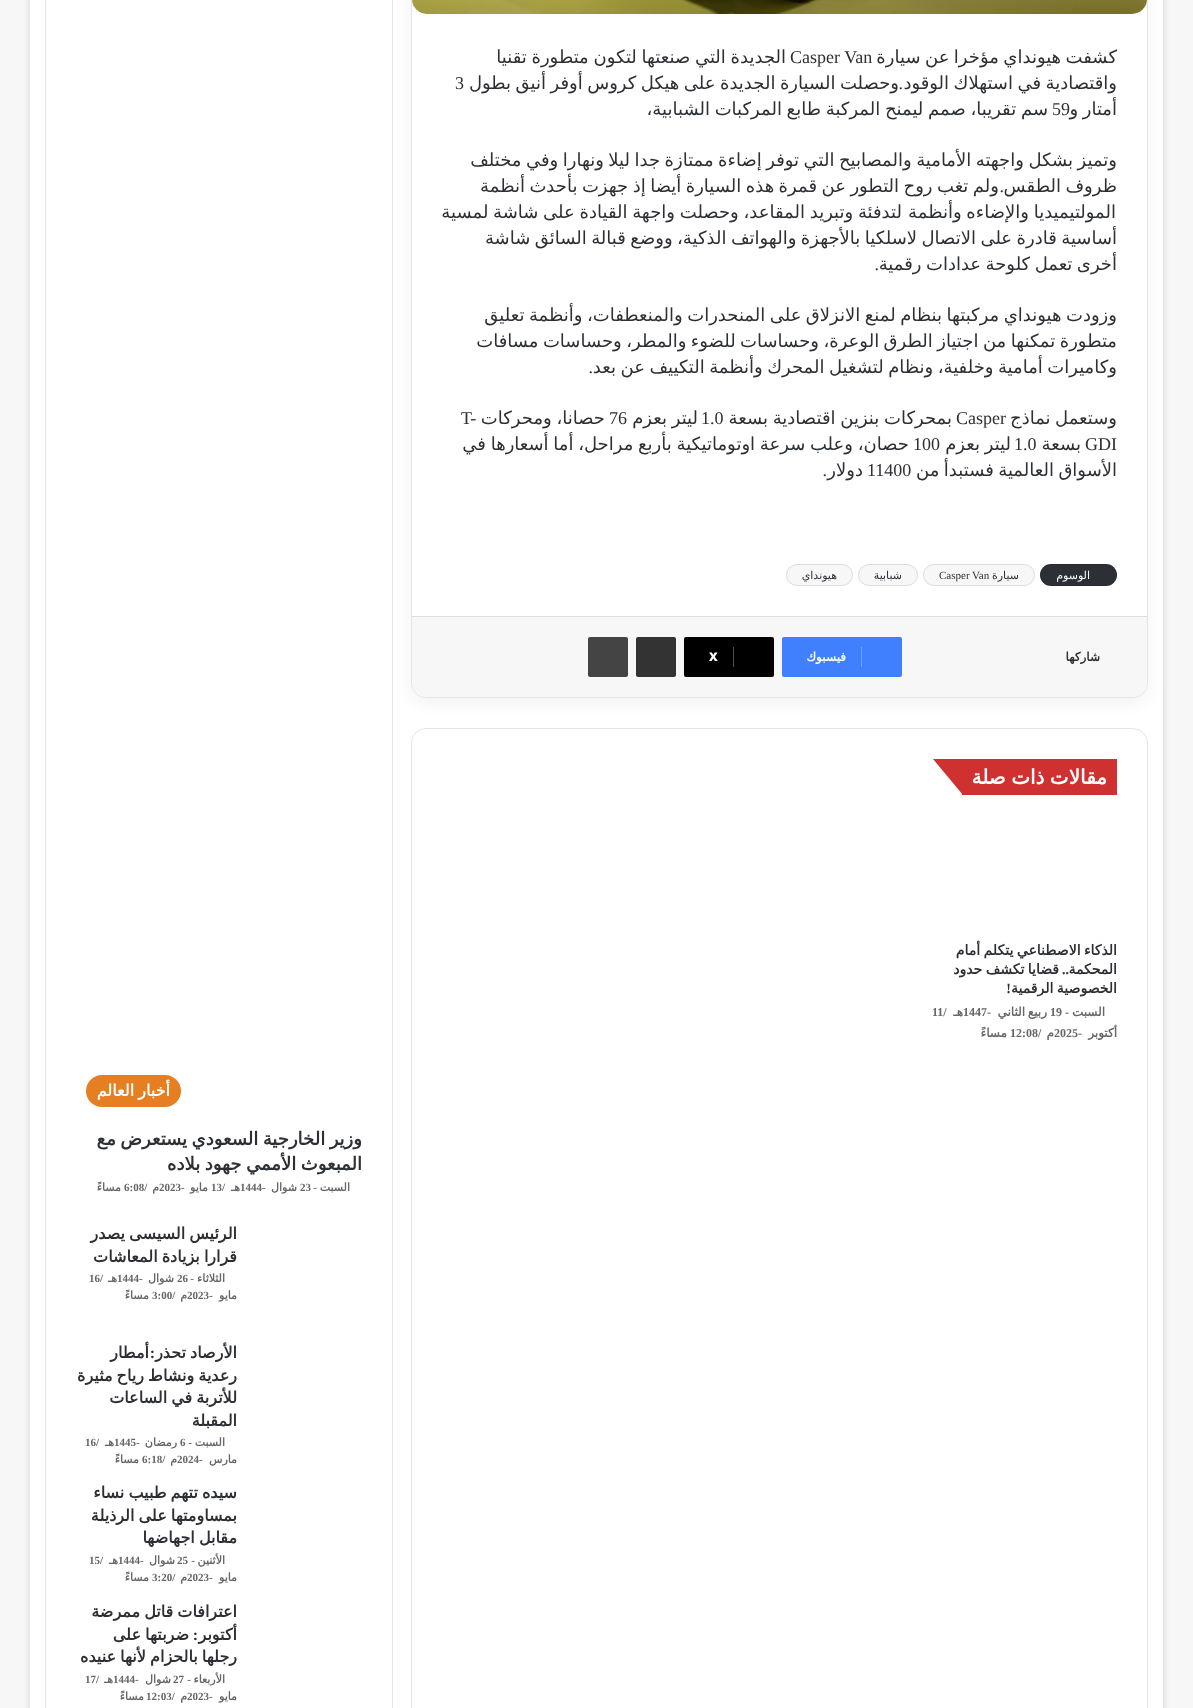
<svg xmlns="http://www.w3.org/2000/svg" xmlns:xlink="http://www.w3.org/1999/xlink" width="1193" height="1708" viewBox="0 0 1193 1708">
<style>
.cls-1{font:18px DejaVu Sans;direction:rtl;fill:#2c2f34}
.cls-2{font:18px Liberation Serif;fill:#2c2f34}
.cls-3{font:18px Liberation Serif;direction:rtl;fill:#2c2f34}
.cls-4{font:11px DejaVu Sans;direction:rtl;fill:#ffffff}
.cls-5{font:11px DejaVu Sans;direction:rtl;fill:#2c2f34}
.cls-6{font:11px Liberation Serif;fill:#2c2f34}
.cls-7{font:bold 12px DejaVu Sans;direction:rtl;fill:#2c2f34}
.cls-8{font:bold 12px DejaVu Sans;direction:rtl;fill:#ffffff}
.cls-9{font:800 12px Open Sans;fill:#ffffff}
.cls-10{font:bold 20px DejaVu Sans;direction:rtl;fill:#ffffff}
.cls-11{font:bold 14px DejaVu Sans;direction:rtl;fill:#2c2f34}
.cls-12{font:bold 14px Liberation Serif;direction:rtl;fill:#2c2f34}
.cls-13{font:bold 12px DejaVu Sans;direction:rtl;fill:#666666}
.cls-14{font:bold 12px Liberation Serif;direction:rtl;fill:#666666}
.cls-15{font:bold 12px Liberation Serif;fill:#666666}
.cls-16{font:bold 16px DejaVu Sans;direction:rtl;fill:#ffffff}
.cls-17{font:bold 18px DejaVu Sans;direction:rtl;fill:#2c2f34}
.cls-18{font:bold 11px DejaVu Sans;direction:rtl;fill:#666666}
.cls-19{font:bold 11px Liberation Serif;direction:rtl;fill:#666666}
.cls-20{font:bold 11px Liberation Serif;fill:#666666}
.cls-21{font:bold 16px DejaVu Sans;direction:rtl;fill:#2c2f34}
.cls-22{font:bold 16px Liberation Serif;direction:rtl;fill:#2c2f34}
</style>
<rect width="100%" height="100%" fill="#f7f7f7"/>
<rect fill="#ababab" fill-opacity="0.5" filter="blur(3.5px)" x="30" y="-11" width="1133" height="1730"/>
<rect fill="#ffffff" x="30" y="0" width="1133" height="1708"/>
<rect fill="#000000" fill-opacity="0.05" filter="blur(7.5px)" x="411" y="-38" width="737" height="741" rx="15"/>
<rect fill="#ffffff" stroke="#e5e5e5" x="411.5" y="-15.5" width="736" height="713" rx="14.5"/>
<image xlink:href="image0.png" x="412" y="0" width="735" height="14"/>
<rect fill="#2c2f34" x="1040" y="564" width="77" height="22" rx="11"/>
<rect fill="none" stroke="#000000" stroke-opacity="0.1" x="1040.5" y="564.5" width="76" height="21" rx="10.5"/>
<rect fill="#f7f7f7" x="923" y="564" width="112" height="22" rx="11"/>
<rect fill="none" stroke="#000000" stroke-opacity="0.1" x="923.5" y="564.5" width="111" height="21" rx="10.5"/>
<rect fill="#f7f7f7" x="858" y="564" width="60" height="22" rx="11"/>
<rect fill="none" stroke="#000000" stroke-opacity="0.1" x="858.5" y="564.5" width="59" height="21" rx="10.5"/>
<rect fill="#f7f7f7" x="786" y="564" width="67" height="22" rx="11"/>
<rect fill="none" stroke="#000000" stroke-opacity="0.1" x="786.5" y="564.5" width="66" height="21" rx="10.5"/>
<path fill="#f7f7f7" d="M412 616H1147V682C1147 690.5 1140.5 697 1132 697H427C418.5 697 412 690.5 412 682Z"/>
<rect fill="#dedede" x="412" y="616" width="735" height="1"/>
<rect fill="#4080ff" x="782" y="637" width="120" height="40" rx="2"/>
<rect fill="#79a6ff" x="861" y="647" width="1" height="20"/>
<rect fill="#000000" x="684" y="637" width="90" height="40" rx="2"/>
<rect fill="#4d4d4d" x="733" y="647" width="1" height="20"/>
<rect fill="#333333" x="636" y="637" width="40" height="40" rx="2"/>
<rect fill="#444444" x="588" y="637" width="40" height="40" rx="2"/>
<rect fill="none" stroke="#e5e5e5" x="411.5" y="728.5" width="736" height="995" rx="14.5"/>
<rect fill="#cf3030" x="962" y="759" width="155" height="36"/>
<path fill="#cf3030" d="M933 759H1042L1072 795H963Z"/>
<rect fill="none" stroke="#e5e5e5" x="45.5" y="-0.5" width="347" height="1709"/>
<rect fill="#e67e22" x="86" y="1075" width="95" height="32" rx="16"/>
<text class="cls-1" x="1117" y="63" word-spacing="-1.25">كشفت هيونداي مؤخرا عن سيارة</text>
<text class="cls-2" x="790" y="63">Casper Van</text>
<text class="cls-1" x="786" y="63" word-spacing="-1">الجديدة التي صنعتها لتكون متطورة تقنيا</text>
<text class="cls-1" x="1117" y="89" word-spacing="-1.25">واقتصادية في استهلاك الوقود</text>
<text class="cls-3" x="903" y="89">.</text>
<text class="cls-1" x="899" y="89" word-spacing="-1.25">وحصلت السيارة الجديدة على هيكل كروس أوفر أنيق بطول</text>
<text class="cls-2" x="455" y="89">3</text>
<text class="cls-2" x="1052" y="115">59</text>
<text class="cls-1" x="1117" y="115" word-spacing="-1.25">أمتار و</text>
<text class="cls-1" x="1048" y="115" word-spacing="-1">سم تقريبا، صمم ليمنح المركبة طابع المركبات الشبابية،</text>
<text class="cls-1"><tspan x="1117" y="166" word-spacing="-1.25">وتميز بشكل واجهته الأمامية والمصابيح التي توفر إضاءة ممتازة جدا ليلا ونهارا وفي مختلف</tspan><tspan x="1117" y="192" word-spacing="-1.25">ظروف الطقس</tspan></text>
<text class="cls-3" x="1004" y="192">.</text>
<text class="cls-1" x="999" y="192" word-spacing="-1.25">ولم تغب روح التطور عن قمرة هذه السيارة أيضا إذ جهزت بأحدث أنظمة</text>
<text class="cls-1" x="1116" y="218" word-spacing="-1">المولتيميديا والإضاءه وأنظمة</text>
<text class="cls-1" x="902" y="218" word-spacing="-1">لتدفئة وتبريد المقاعد، وحصلت واجهة القيادة على شاشة لمسية</text>
<text class="cls-1"><tspan x="1117" y="244" word-spacing="-1.25">أساسية قادرة على الاتصال لاسلكيا بالأجهزة والهواتف الذكية، ووضع قبالة السائق شاشة</tspan><tspan x="1117" y="270" word-spacing="-1.25">أخرى تعمل كلوحة عدادات رقمية</tspan></text>
<text class="cls-3" x="879" y="270">.</text>
<text class="cls-1"><tspan x="1117" y="321" word-spacing="-1.25">وزودت هيونداي مركبتها بنظام لمنع الانزلاق على المنحدرات والمنعطفات، وأنظمة تعليق</tspan><tspan x="1117" y="347" word-spacing="-1.25">متطورة تمكنها من اجتياز الطرق الوعرة، وحساسات للضوء والمطر، وحساسات مسافات</tspan><tspan x="1117" y="373" word-spacing="-1.25">وكاميرات أمامية وخلفية، ونظام لتشغيل المحرك وأنظمة التكييف عن بعد</tspan></text>
<text class="cls-3" x="593" y="373">.</text>
<text class="cls-1" x="1117" y="424" word-spacing="-1.25">وستعمل نماذج</text>
<text class="cls-2" x="956" y="424">Casper</text>
<text class="cls-1" x="952" y="424" word-spacing="-1">بمحركات بنزين اقتصادية بسعة</text>
<text class="cls-2" x="701" y="424">1.0</text>
<text class="cls-1" x="698" y="424" word-spacing="-1">ليتر بعزم</text>
<text class="cls-2" x="609" y="424">76</text>
<text class="cls-1" x="605" y="424" word-spacing="-1">حصانا، ومحركات</text>
<text class="cls-2" x="461" y="424">T-</text>
<text class="cls-2" x="1085" y="450">GDI</text>
<text class="cls-1" x="1081" y="450">بسعة</text>
<text class="cls-2" x="1014" y="450">1.0</text>
<text class="cls-1" x="1011" y="450" word-spacing="-1">ليتر بعزم</text>
<text class="cls-2" x="913" y="450">100</text>
<text class="cls-1" x="909" y="450" word-spacing="-1">حصان، وعلب سرعة اوتوماتيكية بأربع مراحل، أما أسعارها في</text>
<text class="cls-1" x="1117" y="476" word-spacing="-1.25">الأسواق العالمية فستبدأ من</text>
<text class="cls-2" x="867" y="476">11400</text>
<text class="cls-1" x="863" y="476">دولار</text>
<text class="cls-3" x="827" y="476">.</text>
<text class="cls-4" x="1090" y="579">الوسوم</text>
<text class="cls-5" x="1019" y="579">سيارة</text>
<text class="cls-6" x="939" y="579">Casper Van</text>
<text class="cls-5" x="902" y="579">شبابية</text>
<text class="cls-5" x="837" y="579">هيونداي</text>
<text class="cls-7" x="1100" y="661">شاركها</text>
<text class="cls-8" x="846" y="661">فيسبوك</text>
<text class="cls-9" x="709" y="661">X</text>
<text class="cls-10" x="1107" y="784" word-spacing="-1">مقالات ذات صلة</text>
<text class="cls-11"><tspan x="1117" y="955" word-spacing="-1">الذكاء الاصطناعي يتكلم أمام</tspan><tspan x="1117" y="974">المحكمة</tspan></text>
<text class="cls-12" x="1069" y="974">..</text>
<text class="cls-11" x="1059" y="974" word-spacing="-1">قضايا تكشف حدود</text>
<text class="cls-11" x="1117" y="993" word-spacing="-1">الخصوصية الرقمية</text>
<text class="cls-12" x="1011" y="993">!</text>
<text class="cls-13" x="1105" y="1016">السبت</text>
<text class="cls-14" x="1069" y="1016">-</text>
<text class="cls-15" x="1050" y="1016">19</text>
<text class="cls-13" x="1047" y="1016" word-spacing="-1">ربيع الثاني</text>
<text class="cls-15" x="963" y="1016">1447-</text>
<text class="cls-13" x="963" y="1016">هـ</text>
<text class="cls-15" x="932" y="1016">11/</text>
<text class="cls-13" x="1117" y="1037">أكتوبر</text>
<text class="cls-15" x="1054" y="1037">2025-</text>
<text class="cls-13" x="1054" y="1037">م</text>
<text class="cls-15" x="1010" y="1037">12:08/</text>
<text class="cls-13" x="1007" y="1037">مساءً</text>
<text class="cls-16" x="170" y="1096" word-spacing="-1">أخبار العالم</text>
<text class="cls-17"><tspan x="362" y="1145" word-spacing="-1.25">وزير الخارجية السعودي يستعرض مع</tspan><tspan x="362" y="1170" word-spacing="-1.25">المبعوث الأممي جهود بلاده</tspan></text>
<text class="cls-18" x="350" y="1191">السبت</text>
<text class="cls-19" x="317" y="1191">-</text>
<text class="cls-20" x="300" y="1191">23</text>
<text class="cls-18" x="297" y="1191">شوال</text>
<text class="cls-20" x="240" y="1191">1444-</text>
<text class="cls-18" x="240" y="1191">هـ</text>
<text class="cls-20" x="211" y="1191">13/</text>
<text class="cls-18" x="208" y="1191">مايو</text>
<text class="cls-20" x="159" y="1191">2023-</text>
<text class="cls-18" x="159" y="1191">م</text>
<text class="cls-20" x="124" y="1191">6:08/</text>
<text class="cls-18" x="121" y="1191">مساءً</text>
<text class="cls-21" x="237" y="1239" word-spacing="-1">الرئيس السيسى</text>
<text class="cls-21" x="125" y="1239">يصدر</text>
<text class="cls-21" x="237" y="1262" word-spacing="-1">قرارا بزيادة المعاشات</text>
<text class="cls-18" x="225" y="1282">الثلاثاء</text>
<text class="cls-19" x="194" y="1282">-</text>
<text class="cls-20" x="177" y="1282">26</text>
<text class="cls-18" x="174" y="1282">شوال</text>
<text class="cls-20" x="117" y="1282">1444-</text>
<text class="cls-18" x="117" y="1282">هـ</text>
<text class="cls-20" x="89" y="1282">16/</text>
<text class="cls-18" x="237" y="1299">مايو</text>
<text class="cls-20" x="187" y="1299">2023-</text>
<text class="cls-18" x="187" y="1299">م</text>
<text class="cls-20" x="152" y="1299">3:00/</text>
<text class="cls-18" x="149" y="1299">مساءً</text>
<text class="cls-21" x="237" y="1358" word-spacing="-1">الأرصاد تحذر</text>
<text class="cls-22" x="155" y="1358">:</text>
<text class="cls-21" x="149" y="1358">أمطار</text>
<text class="cls-21"><tspan x="237" y="1381" word-spacing="-1">رعدية ونشاط رياح مثيرة</tspan><tspan x="237" y="1403" word-spacing="-1">للأتربة في الساعات</tspan><tspan x="237" y="1426">المقبلة</tspan></text>
<text class="cls-18" x="225" y="1446">السبت</text>
<text class="cls-19" x="192" y="1446">-</text>
<text class="cls-20" x="180" y="1446">6</text>
<text class="cls-18" x="177" y="1446">رمضان</text>
<text class="cls-20" x="114" y="1446">1445-</text>
<text class="cls-18" x="114" y="1446">هـ</text>
<text class="cls-20" x="85" y="1446">16/</text>
<text class="cls-18" x="237" y="1463">مارس</text>
<text class="cls-20" x="177" y="1463">2024-</text>
<text class="cls-18" x="177" y="1463">م</text>
<text class="cls-20" x="142" y="1463">6:18/</text>
<text class="cls-18" x="139" y="1463">مساءً</text>
<text class="cls-21"><tspan x="237" y="1498" word-spacing="-1">سيده تتهم طبيب نساء</tspan><tspan x="237" y="1521" word-spacing="-1">بمساومتها على الرذيلة</tspan><tspan x="237" y="1543" word-spacing="-1">مقابل اجهاضها</tspan></text>
<text class="cls-18" x="225" y="1564">الأثنين</text>
<text class="cls-19" x="195" y="1564">-</text>
<text class="cls-20" x="177" y="1564">25</text>
<text class="cls-18" x="175" y="1564">شوال</text>
<text class="cls-20" x="118" y="1564">1444-</text>
<text class="cls-18" x="118" y="1564">هـ</text>
<text class="cls-20" x="89" y="1564">15/</text>
<text class="cls-18" x="237" y="1581">مايو</text>
<text class="cls-20" x="187" y="1581">2023-</text>
<text class="cls-18" x="187" y="1581">م</text>
<text class="cls-20" x="152" y="1581">3:20/</text>
<text class="cls-18" x="149" y="1581">مساءً</text>
<text class="cls-21"><tspan x="237" y="1617" word-spacing="-1">اعترافات قاتل ممرضة</tspan><tspan x="237" y="1640">أكتوبر</tspan></text>
<text class="cls-22" x="198" y="1640">:</text>
<text class="cls-21" x="189" y="1640" word-spacing="-1">ضربتها على</text>
<text class="cls-21" x="237" y="1662" word-spacing="-1">رجلها بالحزام لأنها عنيده</text>
<text class="cls-18" x="225" y="1683">الأربعاء</text>
<text class="cls-19" x="191" y="1683">-</text>
<text class="cls-20" x="173" y="1683">27</text>
<text class="cls-18" x="171" y="1683">شوال</text>
<text class="cls-20" x="113" y="1683">1444-</text>
<text class="cls-18" x="113" y="1683">هـ</text>
<text class="cls-20" x="85" y="1683">17/</text>
<text class="cls-18" x="237" y="1700">مايو</text>
<text class="cls-20" x="187" y="1700">2023-</text>
<text class="cls-18" x="187" y="1700">م</text>
<text class="cls-20" x="146" y="1700">12:03/</text>
<text class="cls-18" x="144" y="1700">مساءً</text>
</svg>
